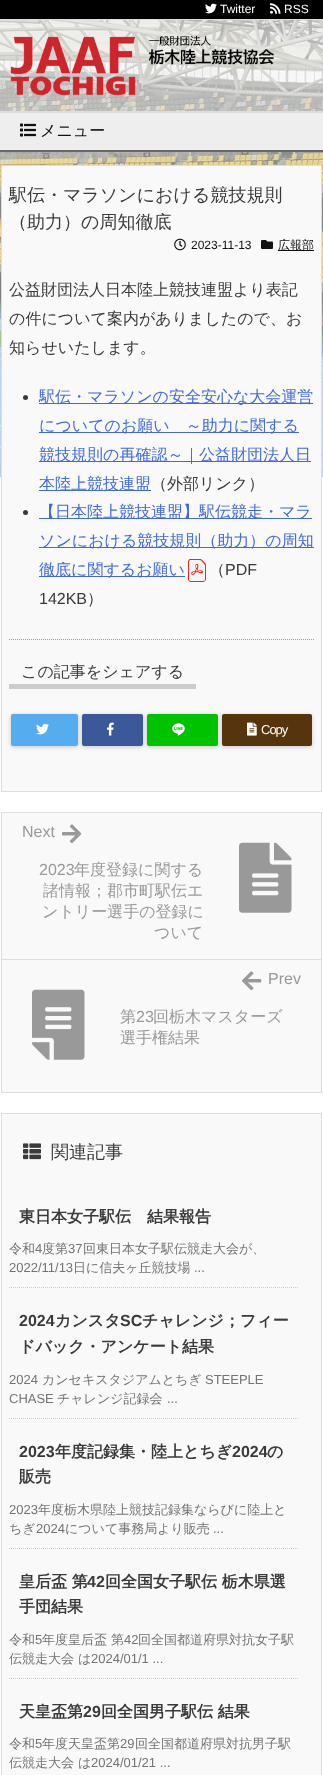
<svg xmlns="http://www.w3.org/2000/svg" xmlns:xlink="http://www.w3.org/1999/xlink" width="323" height="1775" viewBox="0 0 323 1775">
<style>
.cls-1{font:12px Liberation Sans;fill:#ffffff}
.cls-2{font:500 16px WenQuanYi Zen Hei;fill:#111111}
.cls-3{font:500 18px WenQuanYi Zen Hei;fill:#3a3a3a}
.cls-4{font:12px Liberation Sans;fill:#111111}
.cls-5{font:500 12px WenQuanYi Zen Hei;fill:#111111}
.cls-6{font:500 16px WenQuanYi Zen Hei;fill:#3a3a3a}
.cls-7{font:500 16px WenQuanYi Zen Hei;fill:#4169e1}
.cls-8{font:16px Liberation Sans;fill:#3a3a3a}
.cls-9{font:13px Liberation Sans;letter-spacing:-1px;fill:#ffffff}
.cls-10{font:16px Liberation Sans;fill:#999999}
.cls-11{font:500 16px WenQuanYi Zen Hei;fill:#999999}
.cls-12{font:bold 16px WenQuanYi Zen Hei;fill:#3a3a3a}
.cls-13{font:500 13px WenQuanYi Zen Hei;fill:#737373}
.cls-14{font:13px Liberation Sans;fill:#737373}
.cls-15{font:bold 16px Liberation Sans;fill:#3a3a3a}
</style>
<rect width="100%" height="100%" fill="#ffffff"/>
<image xlink:href="image0.png" x="0" y="20" width="323" height="457"/>
<rect fill="#ffffff" fill-opacity="0.36" x="0" y="20" width="323" height="91"/>
<rect fill="#000000" x="0" y="0" width="323" height="19"/>
<rect fill="#dddddd" x="0" y="19" width="323" height="1"/>
<image xlink:href="image1.png" x="205" y="3" width="12" height="11"/>
<image xlink:href="image2.png" x="270" y="3" width="11" height="11"/>
<rect fill="#dddddd" x="0" y="111" width="323" height="2"/>
<rect fill="#666666" x="0" y="150" width="323" height="2"/>
<rect fill="#eeeeee" x="0" y="113" width="323" height="37"/>
<image xlink:href="image3.png" x="20" y="123" width="16" height="14"/>
<image xlink:href="image4.png" x="10" y="36" width="264" height="60"/>
<rect fill="#f9f9f9" stroke="#dddddd" x="1.5" y="165.5" width="320" height="626"/>
<image xlink:href="image5.png" x="174" y="238" width="12" height="13"/>
<image xlink:href="image6.png" x="261" y="240" width="12" height="9"/>
<rect fill="#111111" x="278" y="250" width="36" height="1"/>
<circle fill="#3a3a3a" cx="25.5" cy="397.5" r="2.5"/>
<rect fill="#4169e1" x="39" y="403" width="274" height="1"/>
<rect fill="#4169e1" x="39" y="432" width="260" height="1"/>
<rect fill="#4169e1" x="39" y="461" width="272" height="1"/>
<rect fill="#4169e1" x="39" y="490" width="112" height="1"/>
<circle fill="#3a3a3a" cx="25.5" cy="512.5" r="2.5"/>
<rect fill="#4169e1" x="39" y="518" width="273" height="1"/>
<rect fill="#4169e1" x="39" y="547" width="275" height="1"/>
<rect fill="#4169e1" x="39" y="576" width="146" height="1"/>
<image xlink:href="image7.png" x="188" y="559" width="18" height="23"/>
<path fill="none" stroke="#999999" stroke-dasharray="1 1" d="M9 639.5H314"/>
<rect fill="#cccccc" x="9" y="684" width="187" height="5"/>
<rect fill="#000000" fill-opacity="0.2" filter="blur(2px)" x="11" y="715" width="67" height="32" rx="2"/>
<rect fill="#55acee" x="11" y="714" width="67" height="32" rx="2"/>
<image xlink:href="image8.png" x="36" y="723" width="13" height="12"/>
<rect fill="#000000" fill-opacity="0.2" filter="blur(2px)" x="82" y="715" width="61" height="32" rx="2"/>
<rect fill="#3b5998" x="82" y="714" width="61" height="32" rx="2"/>
<image xlink:href="image9.png" x="107" y="722" width="7" height="14"/>
<rect fill="#000000" fill-opacity="0.2" filter="blur(2px)" x="147" y="715" width="71" height="32" rx="2"/>
<rect fill="#00c300" x="147" y="714" width="71" height="32" rx="2"/>
<image xlink:href="image10.png" x="172" y="723" width="13" height="13"/>
<rect fill="#000000" fill-opacity="0.2" filter="blur(2px)" x="222" y="715" width="90" height="32" rx="2"/>
<rect fill="#56350d" x="222" y="714" width="90" height="32" rx="2"/>
<image xlink:href="image11.png" x="247" y="722" width="10" height="14"/>
<rect fill="#f9f9f9" stroke="#dddddd" x="1.5" y="812.5" width="320" height="280"/>
<rect fill="#dddddd" x="2" y="959" width="319" height="1"/>
<image xlink:href="image12.png" x="62" y="824" width="20" height="20"/>
<image xlink:href="image13.png" x="239" y="842" width="53" height="71"/>
<image xlink:href="image14.png" x="242" y="971" width="20" height="20"/>
<image xlink:href="image15.png" x="32" y="989" width="53" height="71"/>
<rect fill="#f9f9f9" stroke="#dddddd" x="1.5" y="1113.5" width="320" height="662"/>
<image xlink:href="image16.png" x="23" y="1143" width="18" height="17"/>
<path fill="none" stroke="#cccccc" stroke-dasharray="1 1" d="M9 1287.5H299"/>
<path fill="none" stroke="#cccccc" stroke-dasharray="1 1" d="M9 1418.5H299"/>
<path fill="none" stroke="#cccccc" stroke-dasharray="1 1" d="M9 1548.5H299"/>
<path fill="none" stroke="#cccccc" stroke-dasharray="1 1" d="M9 1678.5H299"/>
<text class="cls-1" x="220" y="13">Twitter</text>
<text class="cls-1" x="284" y="13">RSS</text>
<text class="cls-2" x="40" y="136">メニュー</text>
<text class="cls-3"><tspan x="9" y="201">駅伝・マラソンにおける競技規則</tspan><tspan x="9" y="228">（助力）の周知徹底</tspan></text>
<text class="cls-4" x="191" y="249">2023-11-13</text>
<text class="cls-5" x="278" y="249">広報部</text>
<text class="cls-6"><tspan x="9" y="295">公益財団法人日本陸上競技連盟より表記</tspan><tspan x="9" y="324">の件について案内がありましたので、お</tspan><tspan x="9" y="353">知らせいたします。</tspan></text>
<text class="cls-7"><tspan x="39" y="402">駅伝・マラソンの安全安心な大会運営</tspan><tspan x="39" y="431">についてのお願い　～助力に関する</tspan><tspan x="39" y="460">競技規則の再確認～｜公益財団法人日</tspan><tspan x="39" y="489">本陸上競技連盟</tspan></text>
<text class="cls-6" x="151" y="489">（外部リンク）</text>
<text class="cls-7"><tspan x="39" y="517">【日本陸上競技連盟】駅伝競走・マラ</tspan><tspan x="39" y="546">ソンにおける競技規則（助力）の周知</tspan><tspan x="39" y="575">徹底に関するお願い</tspan></text>
<text class="cls-6" x="209" y="575">（</text>
<text class="cls-8" x="225" y="575">PDF</text>
<text class="cls-8" x="39" y="604">142KB</text>
<text class="cls-6" x="87" y="604">）</text>
<text class="cls-6" x="21" y="677">この記事をシェアする</text>
<text class="cls-9" x="261" y="734">Copy</text>
<text class="cls-10" x="22" y="837">Next</text>
<text class="cls-10" x="39" y="875">2023</text>
<text class="cls-11" x="74" y="875">年度登録に関する</text>
<text class="cls-11" x="43" y="896">諸情報；郡市町駅伝エ</text>
<text class="cls-11" x="42" y="917">ントリー選手の登録に</text>
<text class="cls-11" x="154" y="938">ついて</text>
<text class="cls-10" x="268" y="984">Prev</text>
<text class="cls-11" x="120" y="1022">第</text>
<text class="cls-10" x="136" y="1022">23</text>
<text class="cls-11" x="153" y="1022">回栃木マスターズ</text>
<text class="cls-11" x="120" y="1043">選手権結果</text>
<text class="cls-3" x="51" y="1158">関連記事</text>
<text class="cls-12" x="19" y="1222">東日本女子駅伝　結果報告</text>
<text class="cls-13" x="9" y="1253">令和</text>
<text class="cls-14" x="35" y="1253">4</text>
<text class="cls-13" x="42" y="1253">度第</text>
<text class="cls-14" x="68" y="1253">37</text>
<text class="cls-13" x="83" y="1253">回東日本女子駅伝競走大会が、</text>
<text class="cls-14" x="9" y="1272">2022/11/13</text>
<text class="cls-13" x="73" y="1272">日に信夫ヶ丘競技場</text>
<text class="cls-14" x="194" y="1272">...</text>
<text class="cls-15" x="19" y="1326">2024</text>
<text class="cls-12" x="55" y="1326">カンスタ</text>
<text class="cls-15" x="120" y="1326">SC</text>
<text class="cls-12" x="142" y="1326">チャレンジ；フィー</text>
<text class="cls-12" x="19" y="1352">ドバック・アンケート結果</text>
<text class="cls-14" x="9" y="1384">2024</text>
<text class="cls-13" x="42" y="1384">カンセキスタジアムとちぎ</text>
<text class="cls-14" x="205" y="1384">STEEPLE</text>
<text class="cls-14" x="9" y="1403">CHASE</text>
<text class="cls-13" x="57" y="1403">チャレンジ記録会</text>
<text class="cls-14" x="167" y="1403">...</text>
<text class="cls-15" x="19" y="1457">2023</text>
<text class="cls-12" x="55" y="1457">年度記録集・陸上とちぎ</text>
<text class="cls-15" x="232" y="1457">2024</text>
<text class="cls-12" x="267" y="1457">の</text>
<text class="cls-12" x="19" y="1482">販売</text>
<text class="cls-14" x="9" y="1514">2023</text>
<text class="cls-13" x="38" y="1514">年度栃木県陸上競技記録集ならびに陸上と</text>
<text class="cls-13" x="9" y="1533">ちぎ</text>
<text class="cls-14" x="36" y="1533">2024</text>
<text class="cls-13" x="65" y="1533">について事務局より販売</text>
<text class="cls-14" x="213" y="1533">...</text>
<text class="cls-12" x="19" y="1587">皇后盃 第</text>
<text class="cls-15" x="87" y="1587">42</text>
<text class="cls-12" x="105" y="1587">回全国女子駅伝 栃木県選</text>
<text class="cls-12" x="19" y="1612">手団結果</text>
<text class="cls-13" x="9" y="1644">令和</text>
<text class="cls-14" x="35" y="1644">5</text>
<text class="cls-13" x="42" y="1644">年度皇后盃 第</text>
<text class="cls-14" x="124" y="1644">42</text>
<text class="cls-13" x="138" y="1644">回全国都道府県対抗女子駅</text>
<text class="cls-13" x="9" y="1663">伝競走大会 は</text>
<text class="cls-14" x="91" y="1663">2024/01/1 ...</text>
<text class="cls-12" x="19" y="1717">天皇盃第</text>
<text class="cls-15" x="83" y="1717">29</text>
<text class="cls-12" x="101" y="1717">回全国男子駅伝 結果</text>
<text class="cls-13" x="9" y="1748">令和</text>
<text class="cls-14" x="35" y="1748">5</text>
<text class="cls-13" x="42" y="1748">年度天皇盃第</text>
<text class="cls-14" x="120" y="1748">29</text>
<text class="cls-13" x="135" y="1748">回全国都道府県対抗男子駅</text>
<text class="cls-13" x="9" y="1767">伝競走大会 は</text>
<text class="cls-14" x="91" y="1767">2024/01/21 ...</text>
</svg>
